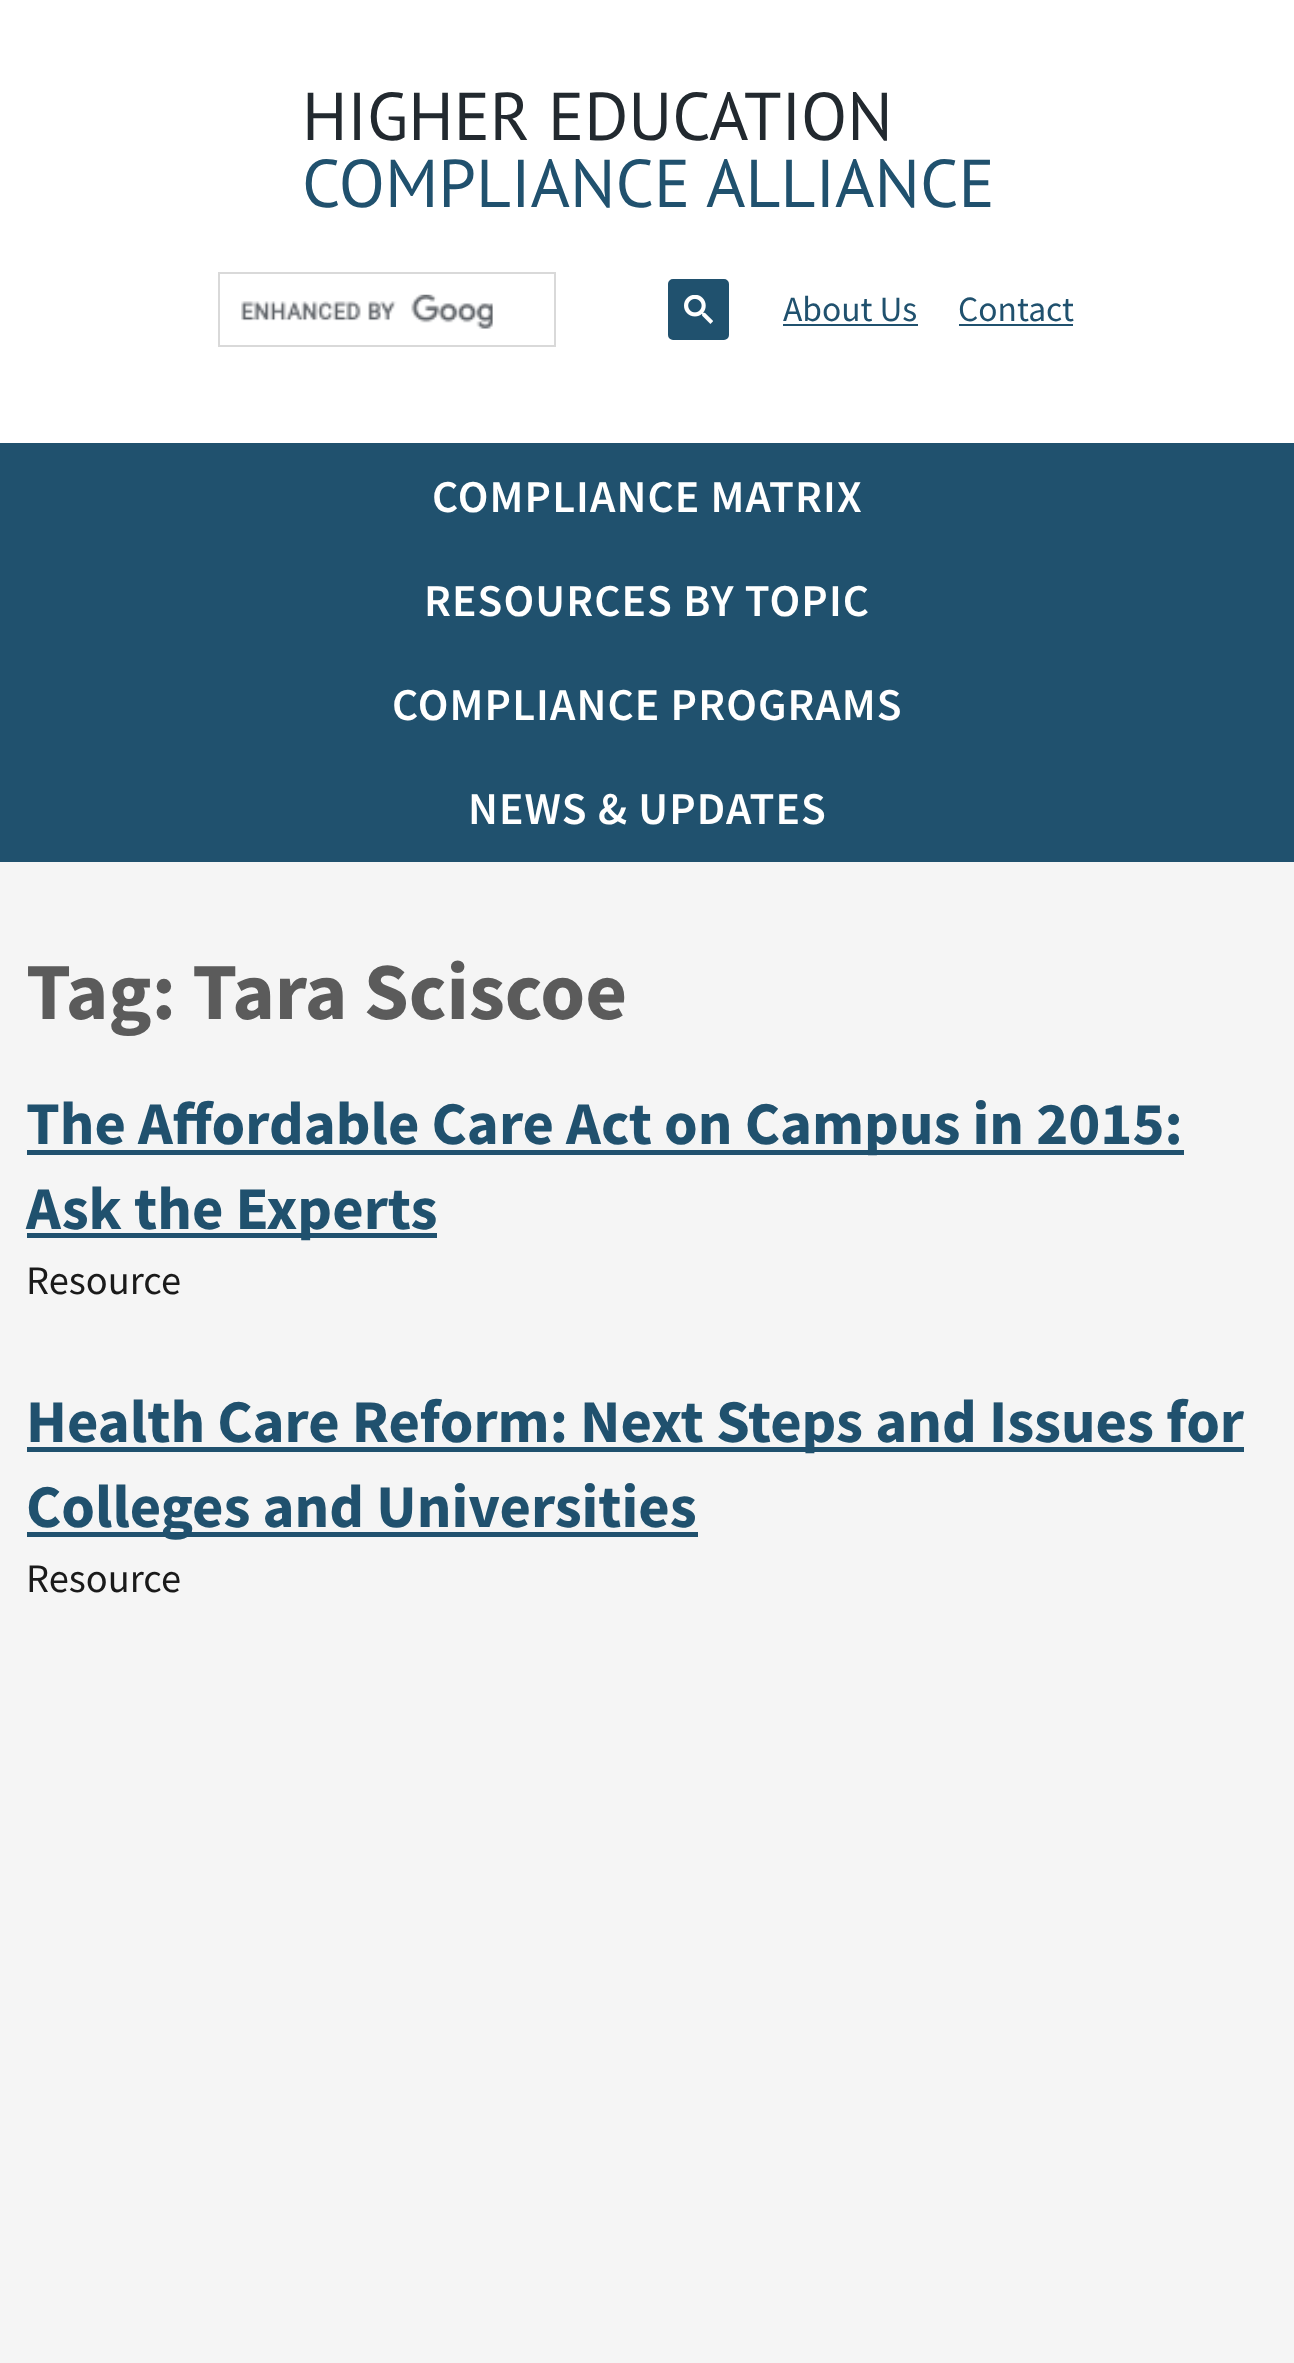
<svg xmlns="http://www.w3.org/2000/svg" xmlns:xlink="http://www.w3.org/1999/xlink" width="1294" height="2363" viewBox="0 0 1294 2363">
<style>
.cls-1{font:67.5px PT Sans;fill:#22292f}
.cls-2{font:67.5px PT Sans;fill:#20516e}
.cls-3{font:35.5px Source Sans Pro;fill:#20516e}
.cls-4{font:600 45.5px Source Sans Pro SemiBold;letter-spacing:1.1px;fill:#ffffff}
.cls-5{font:bold 81px Source Sans Pro;fill:#5b5b5b}
.cls-6{font:bold 60.75px Source Sans Pro;fill:#20516e}
.cls-7{font:40.5px Source Sans Pro;fill:#1a1a1a}
</style>
<rect width="100%" height="100%" fill="#ffffff"/>
<rect fill="none" stroke="#d9d9d9" stroke-width="2" x="219" y="273" width="336" height="73"/>
<image xlink:href="image0.png" x="241" y="294" width="252" height="35"/>
<rect fill="#20516e" stroke="#20516e" stroke-width="2" x="669" y="280" width="59" height="59" rx="4"/>
<image xlink:href="image1.png" x="684" y="295" width="29" height="29"/>
<rect fill="#20516e" x="783" y="324" width="135" height="2"/>
<rect fill="#20516e" x="959" y="324" width="114" height="2"/>
<rect fill="#20516e" x="0" y="443" width="1294" height="419"/>
<rect fill="#f5f5f5" x="0" y="862" width="1294" height="1501"/>
<rect fill="#20516e" x="27" y="1150" width="1157" height="5"/>
<rect fill="#20516e" x="27" y="1233" width="410" height="5"/>
<rect fill="#20516e" x="27" y="1447" width="1217" height="5"/>
<rect fill="#20516e" x="27" y="1532" width="671" height="5"/>
<text class="cls-1" x="302" y="140">HIGHER EDUCATION</text>
<text class="cls-2" x="302" y="207">COMPLIANCE ALLIANCE</text>
<text class="cls-3" x="783" y="321">About Us</text>
<text class="cls-3" x="958" y="321">Contact</text>
<text class="cls-4" x="432" y="512">COMPLIANCE MATRIX</text>
<text class="cls-4" x="424" y="616">RESOURCES BY TOPIC</text>
<text class="cls-4" x="392" y="720">COMPLIANCE PROGRAMS</text>
<text class="cls-4" x="468" y="824">NEWS &amp; UPDATES</text>
<text class="cls-5" x="26" y="1019">Tag: Tara Sciscoe</text>
<text class="cls-6"><tspan x="26" y="1144">The Affordable Care Act on Campus in 2015:</tspan><tspan x="26" y="1229">Ask the Experts</tspan></text>
<text class="cls-7" x="26" y="1294">Resource</text>
<text class="cls-6"><tspan x="26" y="1442">Health Care Reform: Next Steps and Issues for</tspan><tspan x="26" y="1527">Colleges and Universities</tspan></text>
<text class="cls-7" x="26" y="1592">Resource</text>
</svg>
